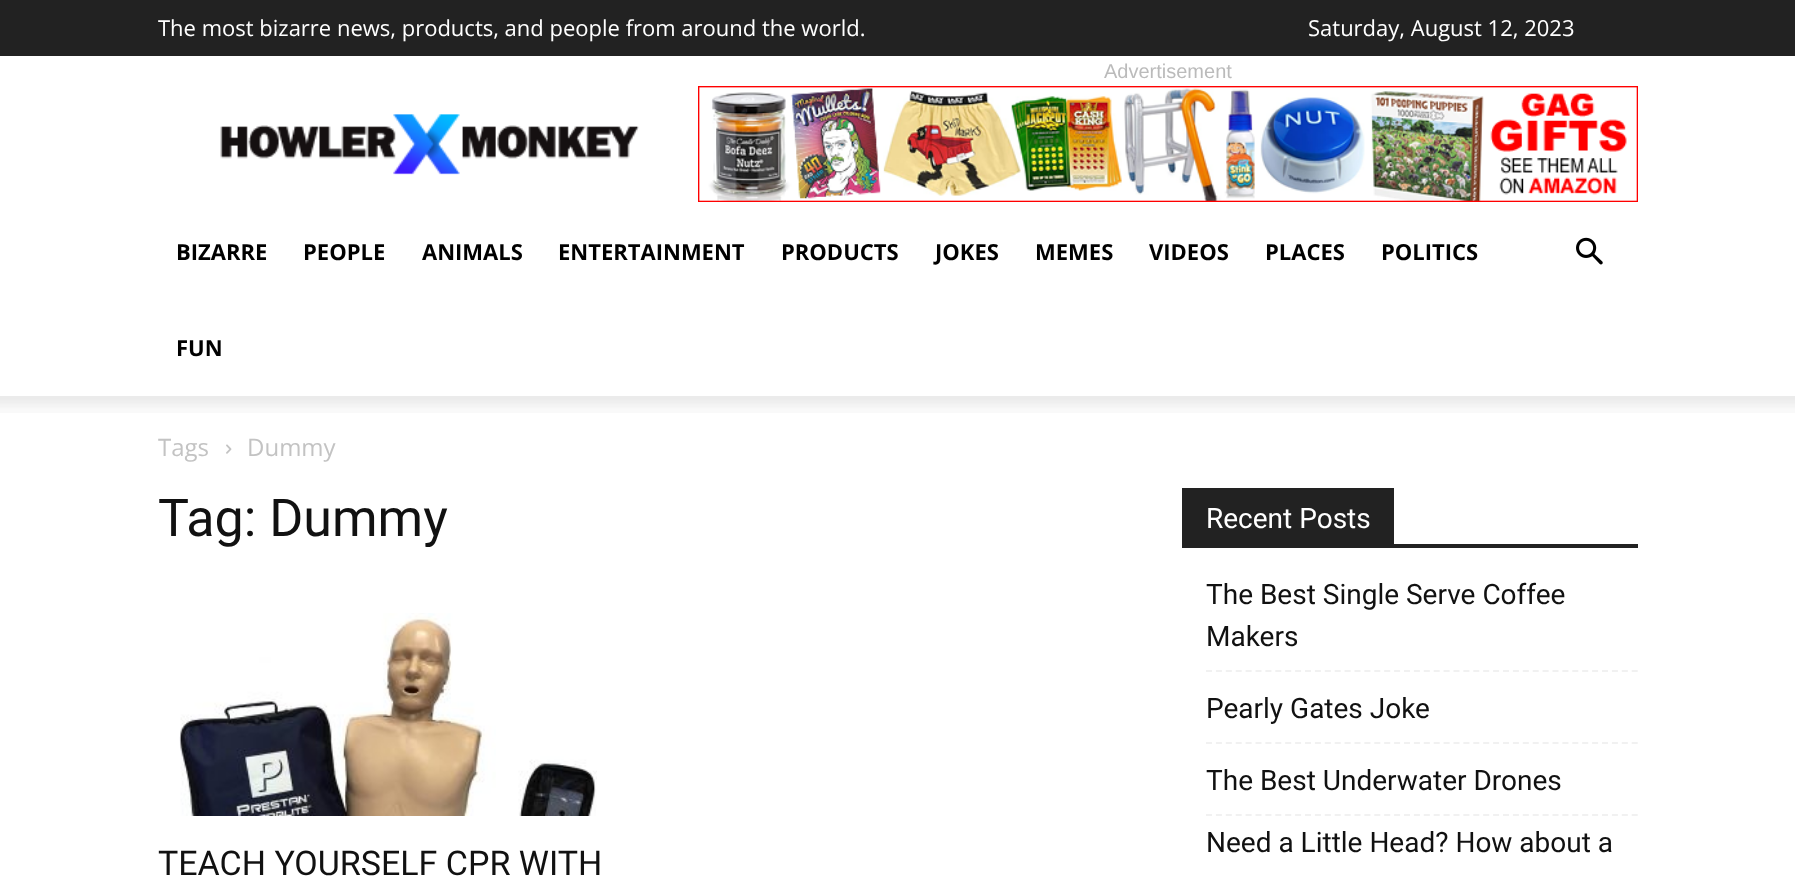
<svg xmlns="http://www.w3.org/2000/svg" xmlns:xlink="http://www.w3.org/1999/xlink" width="1795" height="877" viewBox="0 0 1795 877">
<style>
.cls-1{font:22px Open Sans;fill:#ffffff}
.cls-2{font:20px Liberation Sans;fill:#bbbbbb}
.cls-3{font:bold 22px Open Sans;fill:#000000}
.cls-4{font:24px Open Sans;fill:#c3c3c3}
.cls-5{font:52px Roboto;fill:#111111}
.cls-6{font:34px Roboto;fill:#111111}
.cls-7{font:28px Roboto;fill:#ffffff}
.cls-8{font:28px Roboto;fill:#111111}
</style>
<rect width="100%" height="100%" fill="#ffffff"/>
<rect fill="#222222" x="0" y="0" width="1795" height="56"/>
<image xlink:href="image0.png" x="698" y="86" width="940" height="116"/>
<image xlink:href="image1.png" x="220" y="114" width="419" height="61"/>
<image xlink:href="image2.png" x="1576" y="237" width="27" height="28"/>
<image xlink:href="image3.png" x="0" y="396" width="1795" height="17"/>
<image xlink:href="image4.png" x="226" y="444" width="6" height="10"/>
<image xlink:href="image5.png" x="179" y="613" width="418" height="203"/>
<rect fill="#222222" x="1182" y="544" width="456" height="4"/>
<rect fill="#222222" x="1182" y="488" width="212" height="56"/>
<path fill="none" stroke="#f1f1f1" stroke-width="2" stroke-dasharray="6 3.9" d="M1206 671H1638"/>
<path fill="none" stroke="#f1f1f1" stroke-width="2" stroke-dasharray="6 3.9" d="M1206 743H1638"/>
<path fill="none" stroke="#f1f1f1" stroke-width="2" stroke-dasharray="6 3.9" d="M1206 815H1638"/>
<text class="cls-1" x="158" y="36">The most bizarre news, products, and people from around the world.</text>
<text class="cls-1" x="1308" y="36">Saturday, August 12, 2023</text>
<text class="cls-2" x="1104" y="78">Advertisement</text>
<text class="cls-3" x="176" y="260">BIZARRE</text>
<text class="cls-3" x="303" y="260">PEOPLE</text>
<text class="cls-3" x="422" y="260">ANIMALS</text>
<text class="cls-3" x="558" y="260">ENTERTAINMENT</text>
<text class="cls-3" x="781" y="260">PRODUCTS</text>
<text class="cls-3" x="935" y="260">JOKES</text>
<text class="cls-3" x="1035" y="260">MEMES</text>
<text class="cls-3" x="1149" y="260">VIDEOS</text>
<text class="cls-3" x="1265" y="260">PLACES</text>
<text class="cls-3" x="1381" y="260">POLITICS</text>
<text class="cls-3" x="176" y="356">FUN</text>
<text class="cls-4" x="158" y="456">Tags</text>
<text class="cls-4" x="247" y="456">Dummy</text>
<text class="cls-5" x="158" y="536">Tag: Dummy</text>
<text class="cls-6" x="158" y="875">TEACH YOURSELF CPR WITH</text>
<text class="cls-7" x="1206" y="528">Recent Posts</text>
<text class="cls-8"><tspan x="1206" y="604">The Best Single Serve Coffee</tspan><tspan x="1206" y="646">Makers</tspan></text>
<text class="cls-8" x="1206" y="718">Pearly Gates Joke</text>
<text class="cls-8" x="1206" y="790">The Best Underwater Drones</text>
<text class="cls-8" x="1206" y="852">Need a Little Head? How about a</text>
</svg>
